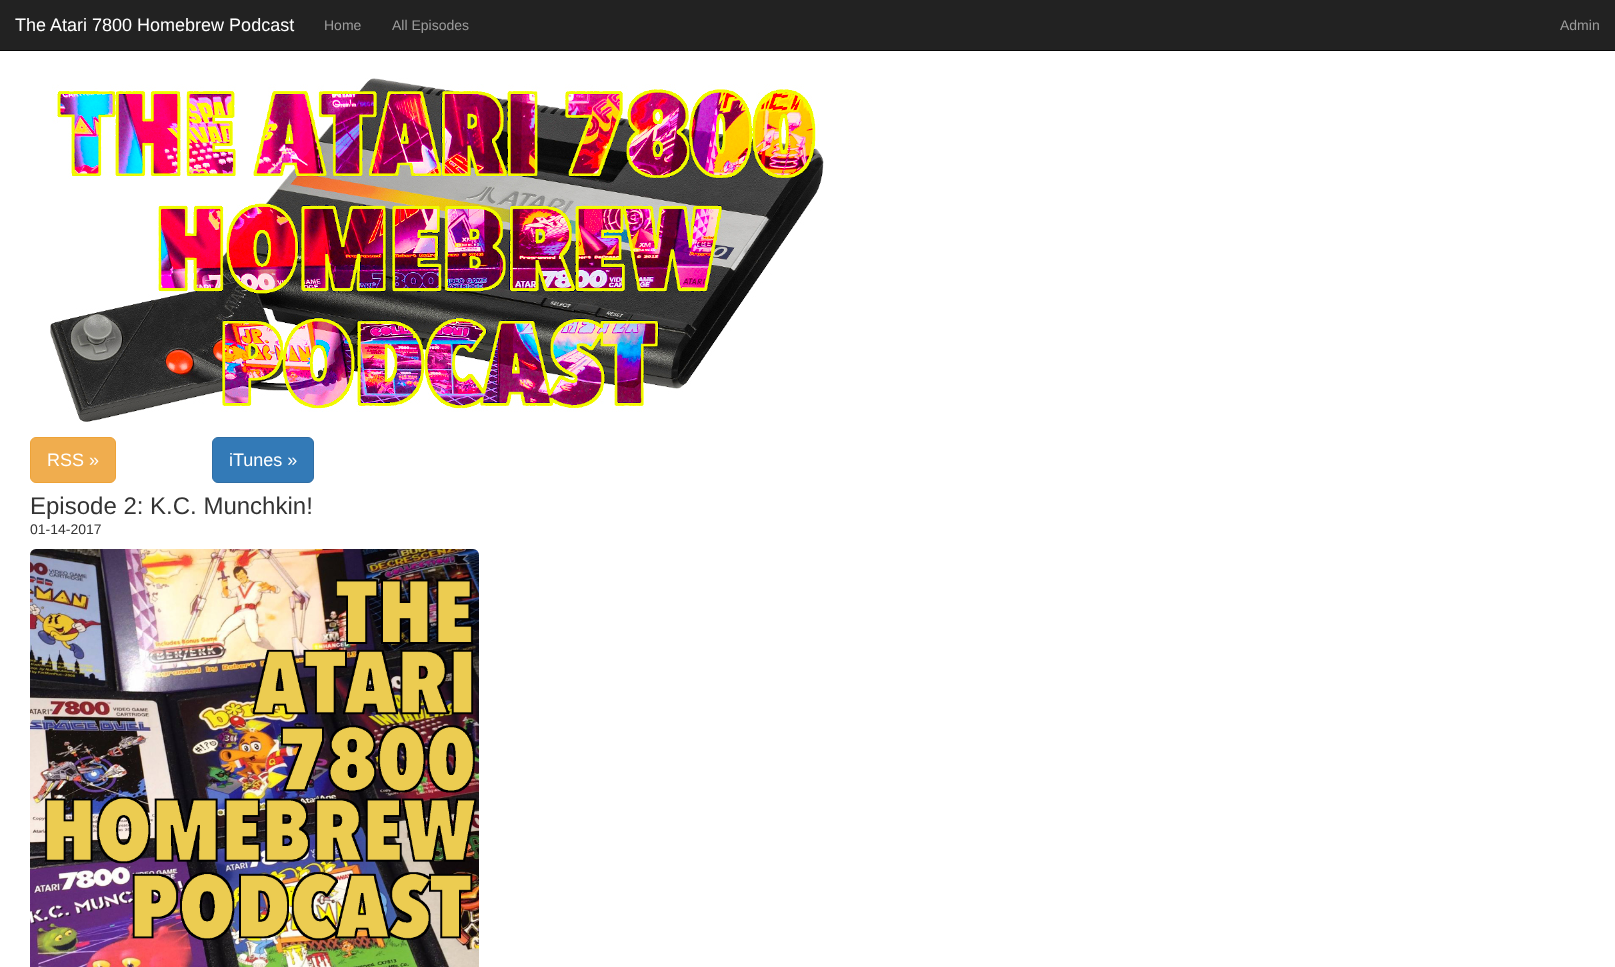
<svg xmlns="http://www.w3.org/2000/svg" xmlns:xlink="http://www.w3.org/1999/xlink" width="1615" height="967" viewBox="0 0 1615 967">
<style>
.cls-1{font:18px Liberation Sans;fill:#ffffff}
.cls-2{font:14px Liberation Sans;fill:#9d9d9d}
.cls-3{font:24px Liberation Sans;fill:#333333}
.cls-4{font:14px Liberation Sans;fill:#333333}
</style>
<rect width="100%" height="100%" fill="#ffffff"/>
<rect fill="#222222" x="0" y="0" width="1615" height="50"/>
<rect fill="#080808" x="0" y="50" width="1615" height="1"/>
<image xlink:href="image0.png" x="50" y="78" width="774" height="344"/>
<rect fill="#f0ad4e" stroke="#eea236" x="30.5" y="437.5" width="85" height="45" rx="5.5"/>
<rect fill="#337ab7" stroke="#2e6da4" x="212.5" y="437.5" width="101" height="45" rx="5.5"/>
<image xlink:href="image1.png" x="30" y="549" width="449" height="418"/>
<text class="cls-1" x="15" y="31">The Atari 7800 Homebrew Podcast</text>
<text class="cls-2" x="324" y="30">Home</text>
<text class="cls-2" x="392" y="30">All Episodes</text>
<text class="cls-2" x="1560" y="30">Admin</text>
<text class="cls-1" x="47" y="466">RSS »</text>
<text class="cls-1" x="229" y="466">iTunes »</text>
<text class="cls-3" x="30" y="514">Episode 2: K.C. Munchkin!</text>
<text class="cls-4" x="30" y="534">01-14-2017</text>
</svg>
